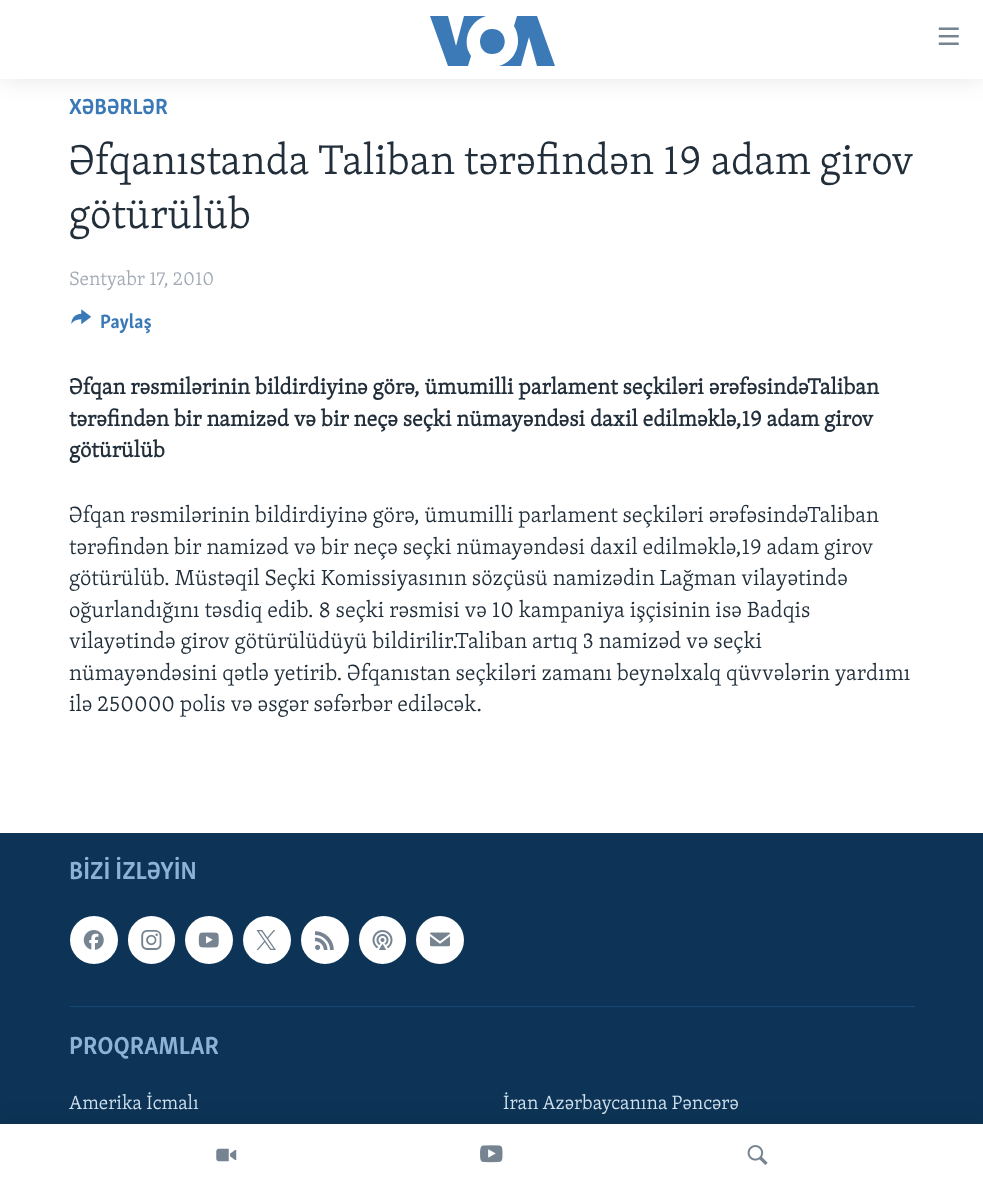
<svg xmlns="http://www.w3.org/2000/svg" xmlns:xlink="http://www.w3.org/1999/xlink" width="983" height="1186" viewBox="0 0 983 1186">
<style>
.cls-1{font:bold 22.5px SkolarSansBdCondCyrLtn;fill:#3a79b7}
.cls-2{font:300 42.75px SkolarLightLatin;fill:#222f3a}
.cls-3{font:300 19.75px SkolarLightLatin;fill:#a1aab4}
.cls-4{font:bold 19.75px SkolarSansBdCondCyrLtn;fill:#3a79b7}
.cls-5{font:bold 22.5px SkolarLightLatin;fill:#222f3a}
.cls-6{font:300 22.5px SkolarLightLatin;fill:#222f3a}
.cls-7{font:bold 25.25px SkolarSansBdCondCyrLtn;fill:#8db3d4}
.cls-8{font:300 19.75px SkolarLightLatin;fill:#d1e1ee}
</style>
<rect width="100%" height="100%" fill="#ffffff"/>
<rect fill="#000000" fill-opacity="0.1" filter="blur(12.5px)" x="0" y="0" width="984" height="79"/>
<rect fill="#ffffff" x="0" y="0" width="983" height="79"/>
<path fill="#3b79b7" d="M471 56L468 66H448L430 16H448L456 46L464 16H486C469 21 461 42 471 56ZM492 29C476 29 476 54 492 54C509 54 509 29 492 29ZM518 41C518 53 510 63 499 66H521L529 37L537 66H555L537 16H517L514 26C517 31 518 36 518 41Z"/>
<image xlink:href="image0.png" x="938" y="27" width="21" height="18"/>
<rect fill="#0d3456" x="0" y="833" width="983" height="291"/>
<rect fill="#000000" fill-opacity="0.1" filter="blur(12.5px)" x="0" y="1124" width="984" height="62"/>
<rect fill="#ffffff" x="0" y="1124" width="983" height="62"/>
<image xlink:href="image1.png" x="216" y="1148" width="21" height="14"/>
<image xlink:href="image2.png" x="480" y="1145" width="23" height="18"/>
<image xlink:href="image3.png" x="747" y="1145" width="21" height="20"/>
<image xlink:href="image4.png" x="71" y="309" width="21" height="16"/>
<circle fill="#ffffff" cx="94" cy="940" r="24"/>
<image xlink:href="image5.png" x="83" y="930" width="21" height="20"/>
<rect fill="#ffffff" x="128" y="916" width="47" height="48" rx="23.5"/>
<image xlink:href="image6.png" x="141" y="930" width="21" height="20"/>
<circle fill="#ffffff" cx="209" cy="940" r="24"/>
<image xlink:href="image7.png" x="198" y="932" width="21" height="16"/>
<circle fill="#ffffff" cx="267" cy="940" r="24"/>
<image xlink:href="image8.png" x="256" y="930" width="20" height="20"/>
<circle fill="#ffffff" cx="325" cy="940" r="24"/>
<image xlink:href="image9.png" x="315" y="931" width="19" height="19"/>
<rect fill="#ffffff" x="359" y="916" width="47" height="48" rx="23.5"/>
<image xlink:href="image10.png" x="372" y="930" width="21" height="20"/>
<circle fill="#ffffff" cx="440" cy="940" r="24"/>
<image xlink:href="image11.png" x="430" y="932" width="20" height="15"/>
<rect fill="#134976" x="70" y="1006" width="845" height="1"/>
<text class="cls-1" x="69" y="114">XƏBƏRLƏR</text>
<text class="cls-2"><tspan x="69" y="174">Əfqanıstanda Taliban tərəfindən 19 adam girov</tspan><tspan x="69" y="228">götürülüb</tspan></text>
<text class="cls-3" x="69" y="285">Sentyabr 17, 2010</text>
<text class="cls-4" x="100" y="328">Paylaş</text>
<text class="cls-5"><tspan x="69" y="394">Əfqan rəsmilərinin bildirdiyinə görə, ümumilli parlament seçkiləri ərəfəsindəTaliban</tspan><tspan x="69" y="426">tərəfindən bir namizəd və bir neçə seçki nümayəndəsi daxil edilməklə,19 adam girov</tspan><tspan x="69" y="457">götürülüb</tspan></text>
<text class="cls-6"><tspan x="69" y="522">Əfqan rəsmilərinin bildirdiyinə görə, ümumilli parlament seçkiləri ərəfəsindəTaliban</tspan><tspan x="69" y="554">tərəfindən bir namizəd və bir neçə seçki nümayəndəsi daxil edilməklə,19 adam girov</tspan><tspan x="69" y="585">götürülüb. Müstəqil Seçki Komissiyasının sözçüsü namizədin Lağman vilayətində</tspan><tspan x="69" y="617">oğurlandığını təsdiq edib. 8 seçki rəsmisi və 10 kampaniya işçisinin isə Badqis</tspan><tspan x="69" y="648">vilayətində girov götürülüdüyü bildirilir.Taliban artıq 3 namizəd və seçki</tspan><tspan x="69" y="680">nümayəndəsini qətlə yetirib. Əfqanıstan seçkiləri zamanı beynəlxalq qüvvələrin yardımı</tspan><tspan x="69" y="711">ilə 250000 polis və əsgər səfərbər ediləcək.</tspan></text>
<text class="cls-7" x="69" y="879">BİZİ İZLƏYİN</text>
<text class="cls-7" x="69" y="1054">PROQRAMLAR</text>
<text class="cls-8" x="69" y="1109">Amerika İcmalı</text>
<text class="cls-8" x="503" y="1109">İran Azərbaycanına Pəncərə</text>
</svg>
